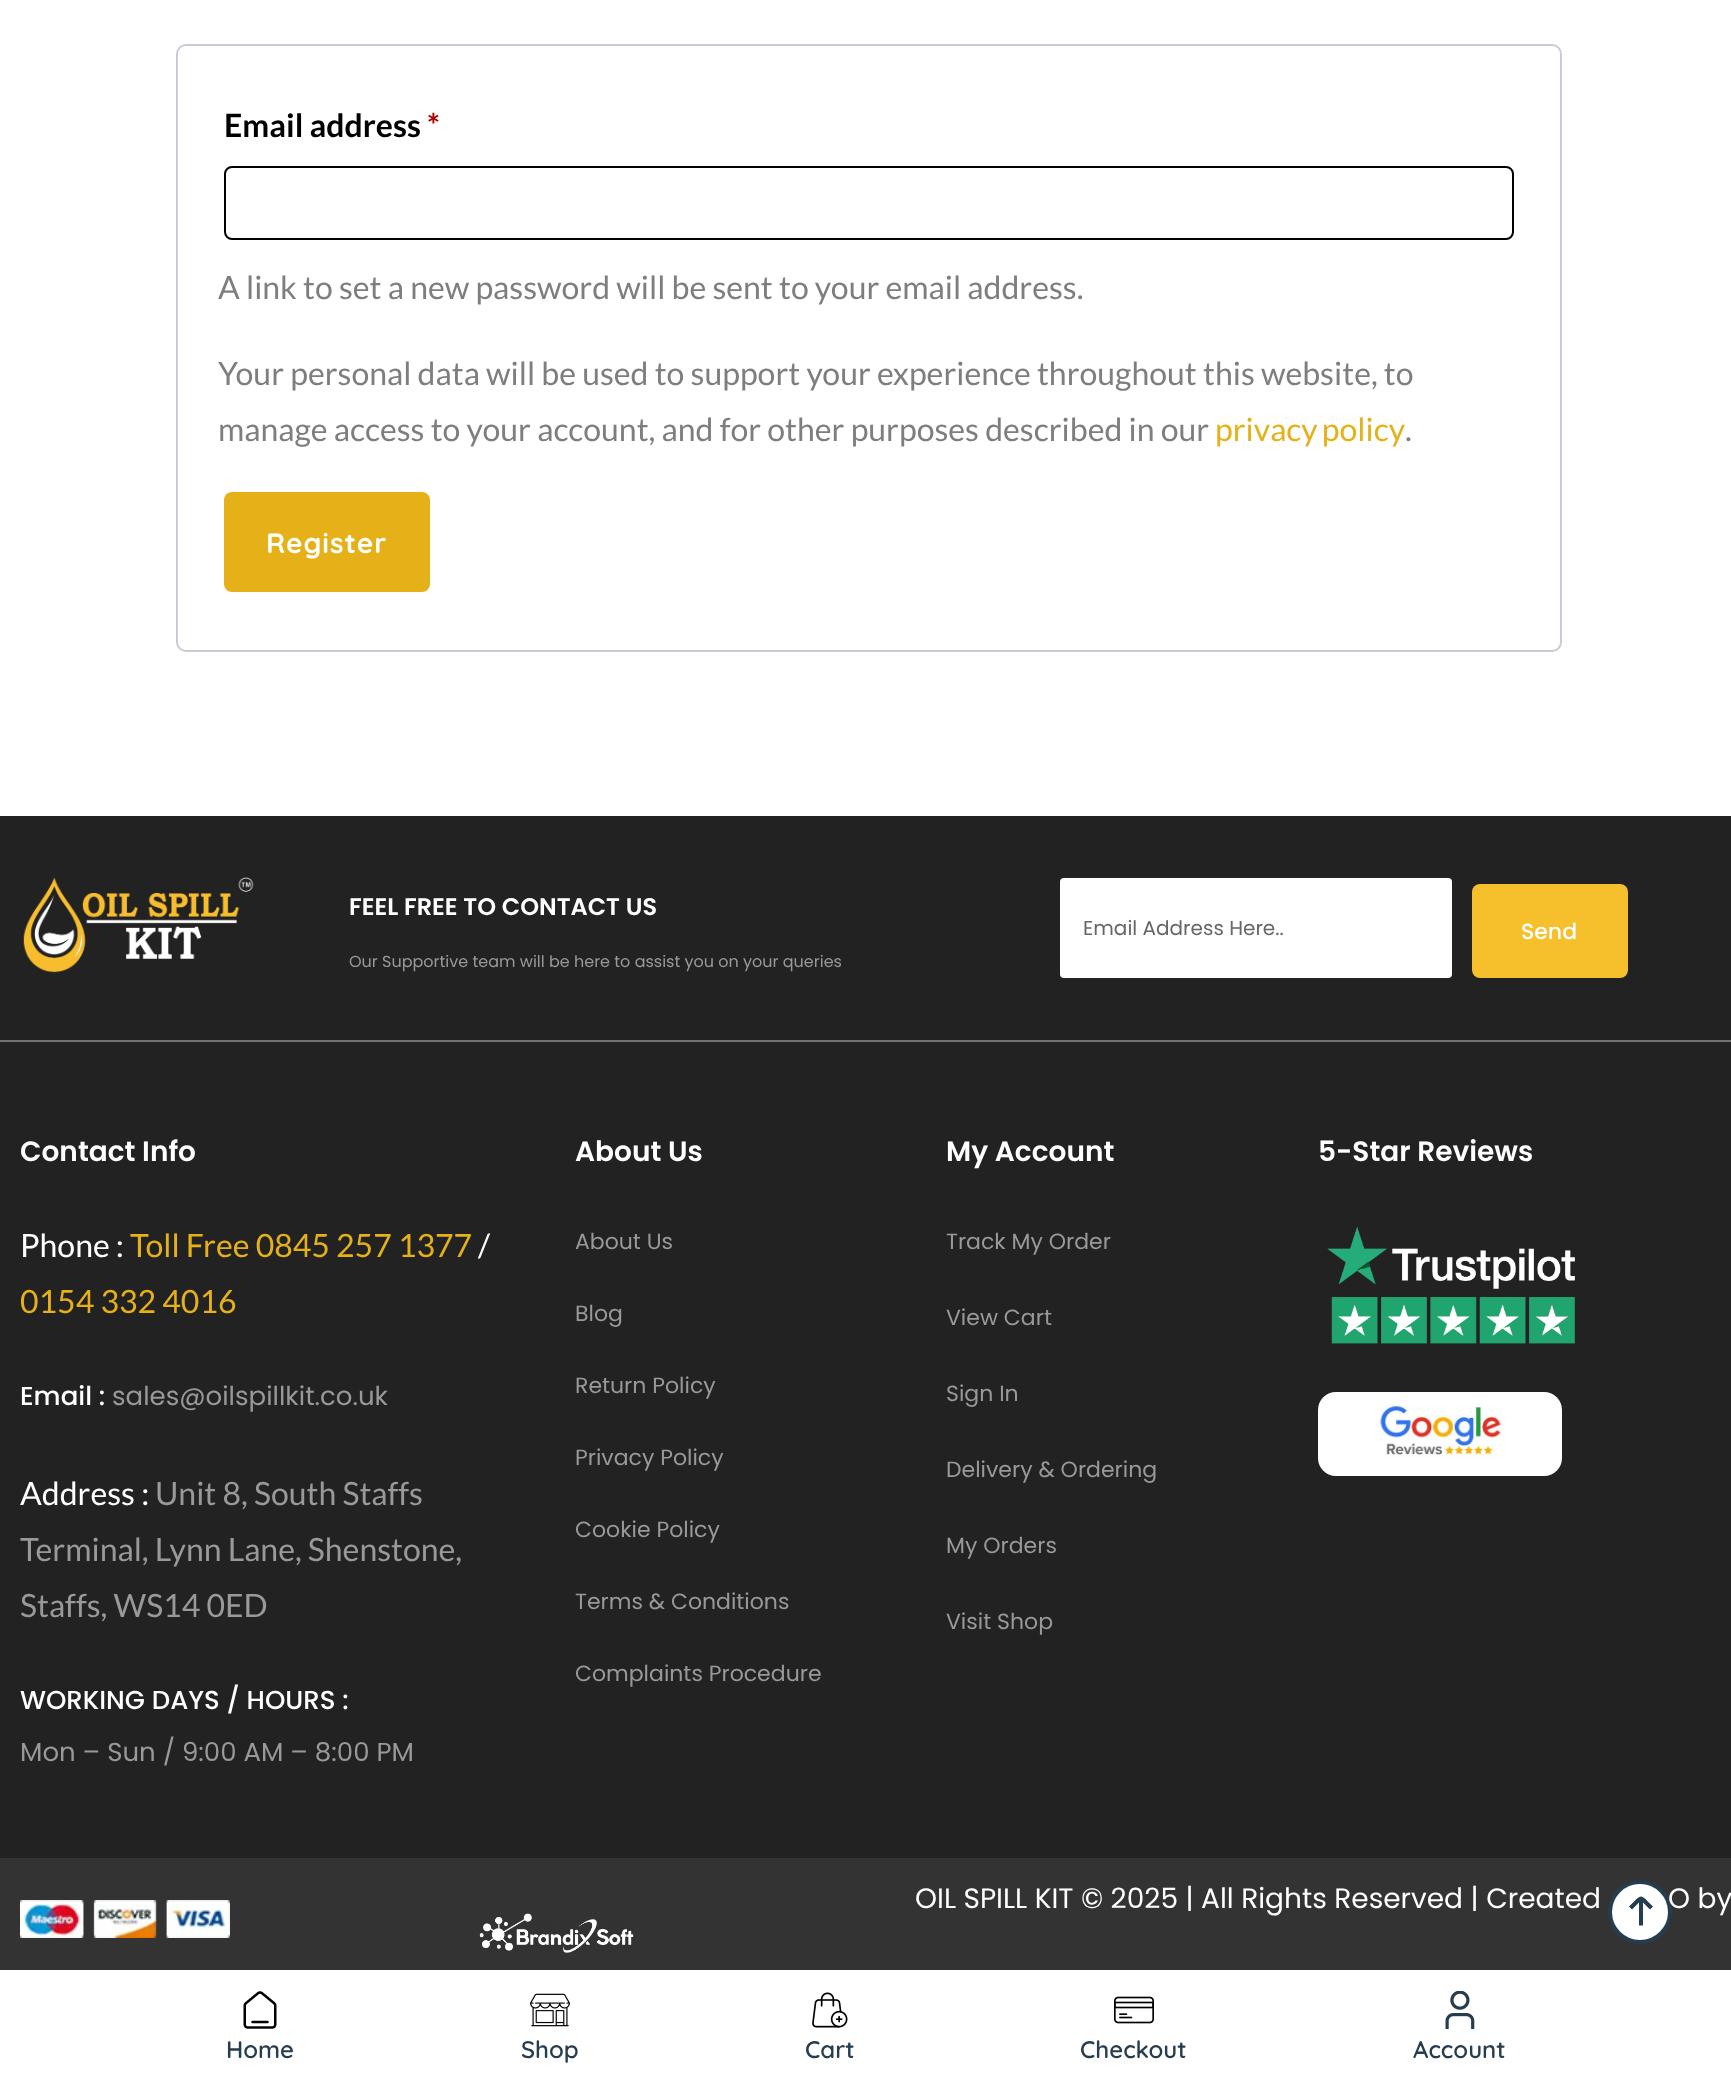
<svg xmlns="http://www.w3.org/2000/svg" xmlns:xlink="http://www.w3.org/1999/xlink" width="1731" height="2084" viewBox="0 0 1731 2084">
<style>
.cls-1{font:bold 32px Lato;fill:#000000}
.cls-2{font:bold 32px Lato;fill:#aa0000}
.cls-3{font:32px Lato;fill:#7e7e7e}
.cls-4{font:32px Lato;fill:#e6b118}
.cls-5{font:bold 28px Quicksand;letter-spacing:1px;fill:#ffffff}
.cls-6{font:600 24px Poppins;fill:#ffffff}
.cls-7{font:16px Poppins;fill:#999999}
.cls-8{font:20px Poppins;fill:#666666}
.cls-9{font:500 22px Poppins;fill:#ffffff}
.cls-10{font:600 28px Poppins;fill:#ffffff}
.cls-11{font:32px Lato;fill:#ffffff}
.cls-12{font:500 26px Poppins;fill:#ffffff}
.cls-13{font:26px Poppins;fill:#999999}
.cls-14{font:32px Lato;fill:#999999}
.cls-15{font:22px Poppins;fill:#999999}
.cls-16{font:28px Poppins;fill:#ffffff}
.cls-17{font:600 24px Quicksand;fill:#253d4e}
</style>
<rect width="100%" height="100%" fill="#ffffff"/>
<rect fill="none" stroke="#cfc8d8" stroke-width="2" x="177" y="45" width="1384" height="606" rx="9"/>
<rect fill="none" stroke="#000000" stroke-width="2" x="225" y="167" width="1288" height="72" rx="7"/>
<rect fill="#e6b118" x="224" y="492" width="206" height="100" rx="8"/>
<rect fill="#222222" x="0" y="816" width="1731" height="224"/>
<rect fill="#737373" x="0" y="1040" width="1731" height="2"/>
<image xlink:href="image0.png" x="23" y="877" width="231" height="96"/>
<rect fill="#ffffff" x="1060" y="878" width="392" height="100" rx="4"/>
<rect fill="#f6bf2c" x="1472" y="884" width="156" height="94" rx="8"/>
<rect fill="#222222" x="0" y="1042" width="1731" height="816"/>
<image xlink:href="image1.png" x="1327" y="1226" width="248" height="118"/>
<image xlink:href="image2.png" x="1318" y="1392" width="244" height="84"/>
<rect fill="#333333" x="0" y="1858" width="1731" height="112"/>
<image xlink:href="image3.png" x="20" y="1900" width="210" height="38"/>
<image xlink:href="image4.png" x="479" y="1913" width="155" height="40"/>
<circle fill="#ffffff" stroke="#253d4e" stroke-width="4" cx="1640" cy="1912" r="30"/>
<path fill="#253d4e" d="M1653 1906.5C1639.5 1893 1642.5 1893 1629 1906.5L1632 1909.5L1639 1902.5V1925.5H1643V1902.5L1650 1909.5Z"/>
<image xlink:href="image5.png" x="243" y="1991" width="34" height="38"/>
<image xlink:href="image6.png" x="530" y="1993" width="40" height="34"/>
<image xlink:href="image7.png" x="812" y="1992" width="36" height="36"/>
<image xlink:href="image8.png" x="1114" y="1996" width="40" height="28"/>
<image xlink:href="image9.png" x="1445" y="1991" width="30" height="38"/>
<text class="cls-1" x="224" y="137">Email address</text>
<text class="cls-2" x="427" y="137">*</text>
<text class="cls-3" x="218" y="299">A link to set a new password will be sent to your email address.</text>
<text class="cls-3"><tspan x="218" y="385">Your personal data will be used to support your experience throughout this website, to</tspan><tspan x="218" y="441">manage access to your account, and for other purposes described in our</tspan></text>
<text class="cls-4" x="1215" y="441" word-spacing="-2">privacy policy</text>
<text class="cls-3" x="1405" y="441">.</text>
<text class="cls-5" x="266" y="553">Register</text>
<text class="cls-6" x="349" y="915">FEEL FREE TO CONTACT US</text>
<text class="cls-7" x="349" y="967">Our Supportive team will be here to assist you on your queries</text>
<text class="cls-8" x="1083" y="935">Email Address Here..</text>
<text class="cls-9" x="1521" y="939">Send</text>
<text class="cls-10" x="20" y="1161">Contact Info</text>
<text class="cls-11" x="20" y="1257">Phone :</text>
<text class="cls-4" x="130" y="1257">Toll Free 0845 257 1377</text>
<text class="cls-11" x="478" y="1257">/</text>
<text class="cls-4" x="20" y="1313">0154 332 4016</text>
<text class="cls-12" x="20" y="1405">Email :</text>
<text class="cls-13" x="112" y="1405">sales@oilspillkit.co.uk</text>
<text class="cls-11" x="20" y="1505">Address :</text>
<text class="cls-14" x="155" y="1505">Unit 8, South Staffs</text>
<text class="cls-14"><tspan x="20" y="1561">Terminal, Lynn Lane, Shenstone,</tspan><tspan x="20" y="1617">Staffs, WS14 0ED</tspan></text>
<text class="cls-12" x="20" y="1709">WORKING DAYS / HOURS :</text>
<text class="cls-13" x="20" y="1761">Mon – Sun / 9:00 AM – 8:00 PM</text>
<text class="cls-10" x="575" y="1161">About Us</text>
<text class="cls-15" x="575" y="1249">About Us</text>
<text class="cls-15" x="575" y="1321">Blog</text>
<text class="cls-15" x="575" y="1393">Return Policy</text>
<text class="cls-15" x="575" y="1465">Privacy Policy</text>
<text class="cls-15" x="575" y="1537">Cookie Policy</text>
<text class="cls-15" x="575" y="1609">Terms &amp; Conditions</text>
<text class="cls-15" x="575" y="1681">Complaints Procedure</text>
<text class="cls-10" x="946" y="1161">My Account</text>
<text class="cls-15" x="946" y="1249">Track My Order</text>
<text class="cls-15" x="946" y="1325">View Cart</text>
<text class="cls-15" x="946" y="1401">Sign In</text>
<text class="cls-15" x="946" y="1477">Delivery &amp; Ordering</text>
<text class="cls-15" x="946" y="1553">My Orders</text>
<text class="cls-15" x="946" y="1629">Visit Shop</text>
<text class="cls-10" x="1318" y="1161">5-Star Reviews</text>
<text class="cls-16" x="915" y="1908">OIL SPILL KIT © 2025 | All Rights Reserved | Created</text>
<text class="cls-16" x="1668" y="1908">O by</text>
<text class="cls-17" x="226" y="2058">Home</text>
<text class="cls-17" x="521" y="2058">Shop</text>
<text class="cls-17" x="805" y="2058">Cart</text>
<text class="cls-17" x="1080" y="2058">Checkout</text>
<text class="cls-17" x="1413" y="2058">Account</text>
</svg>
